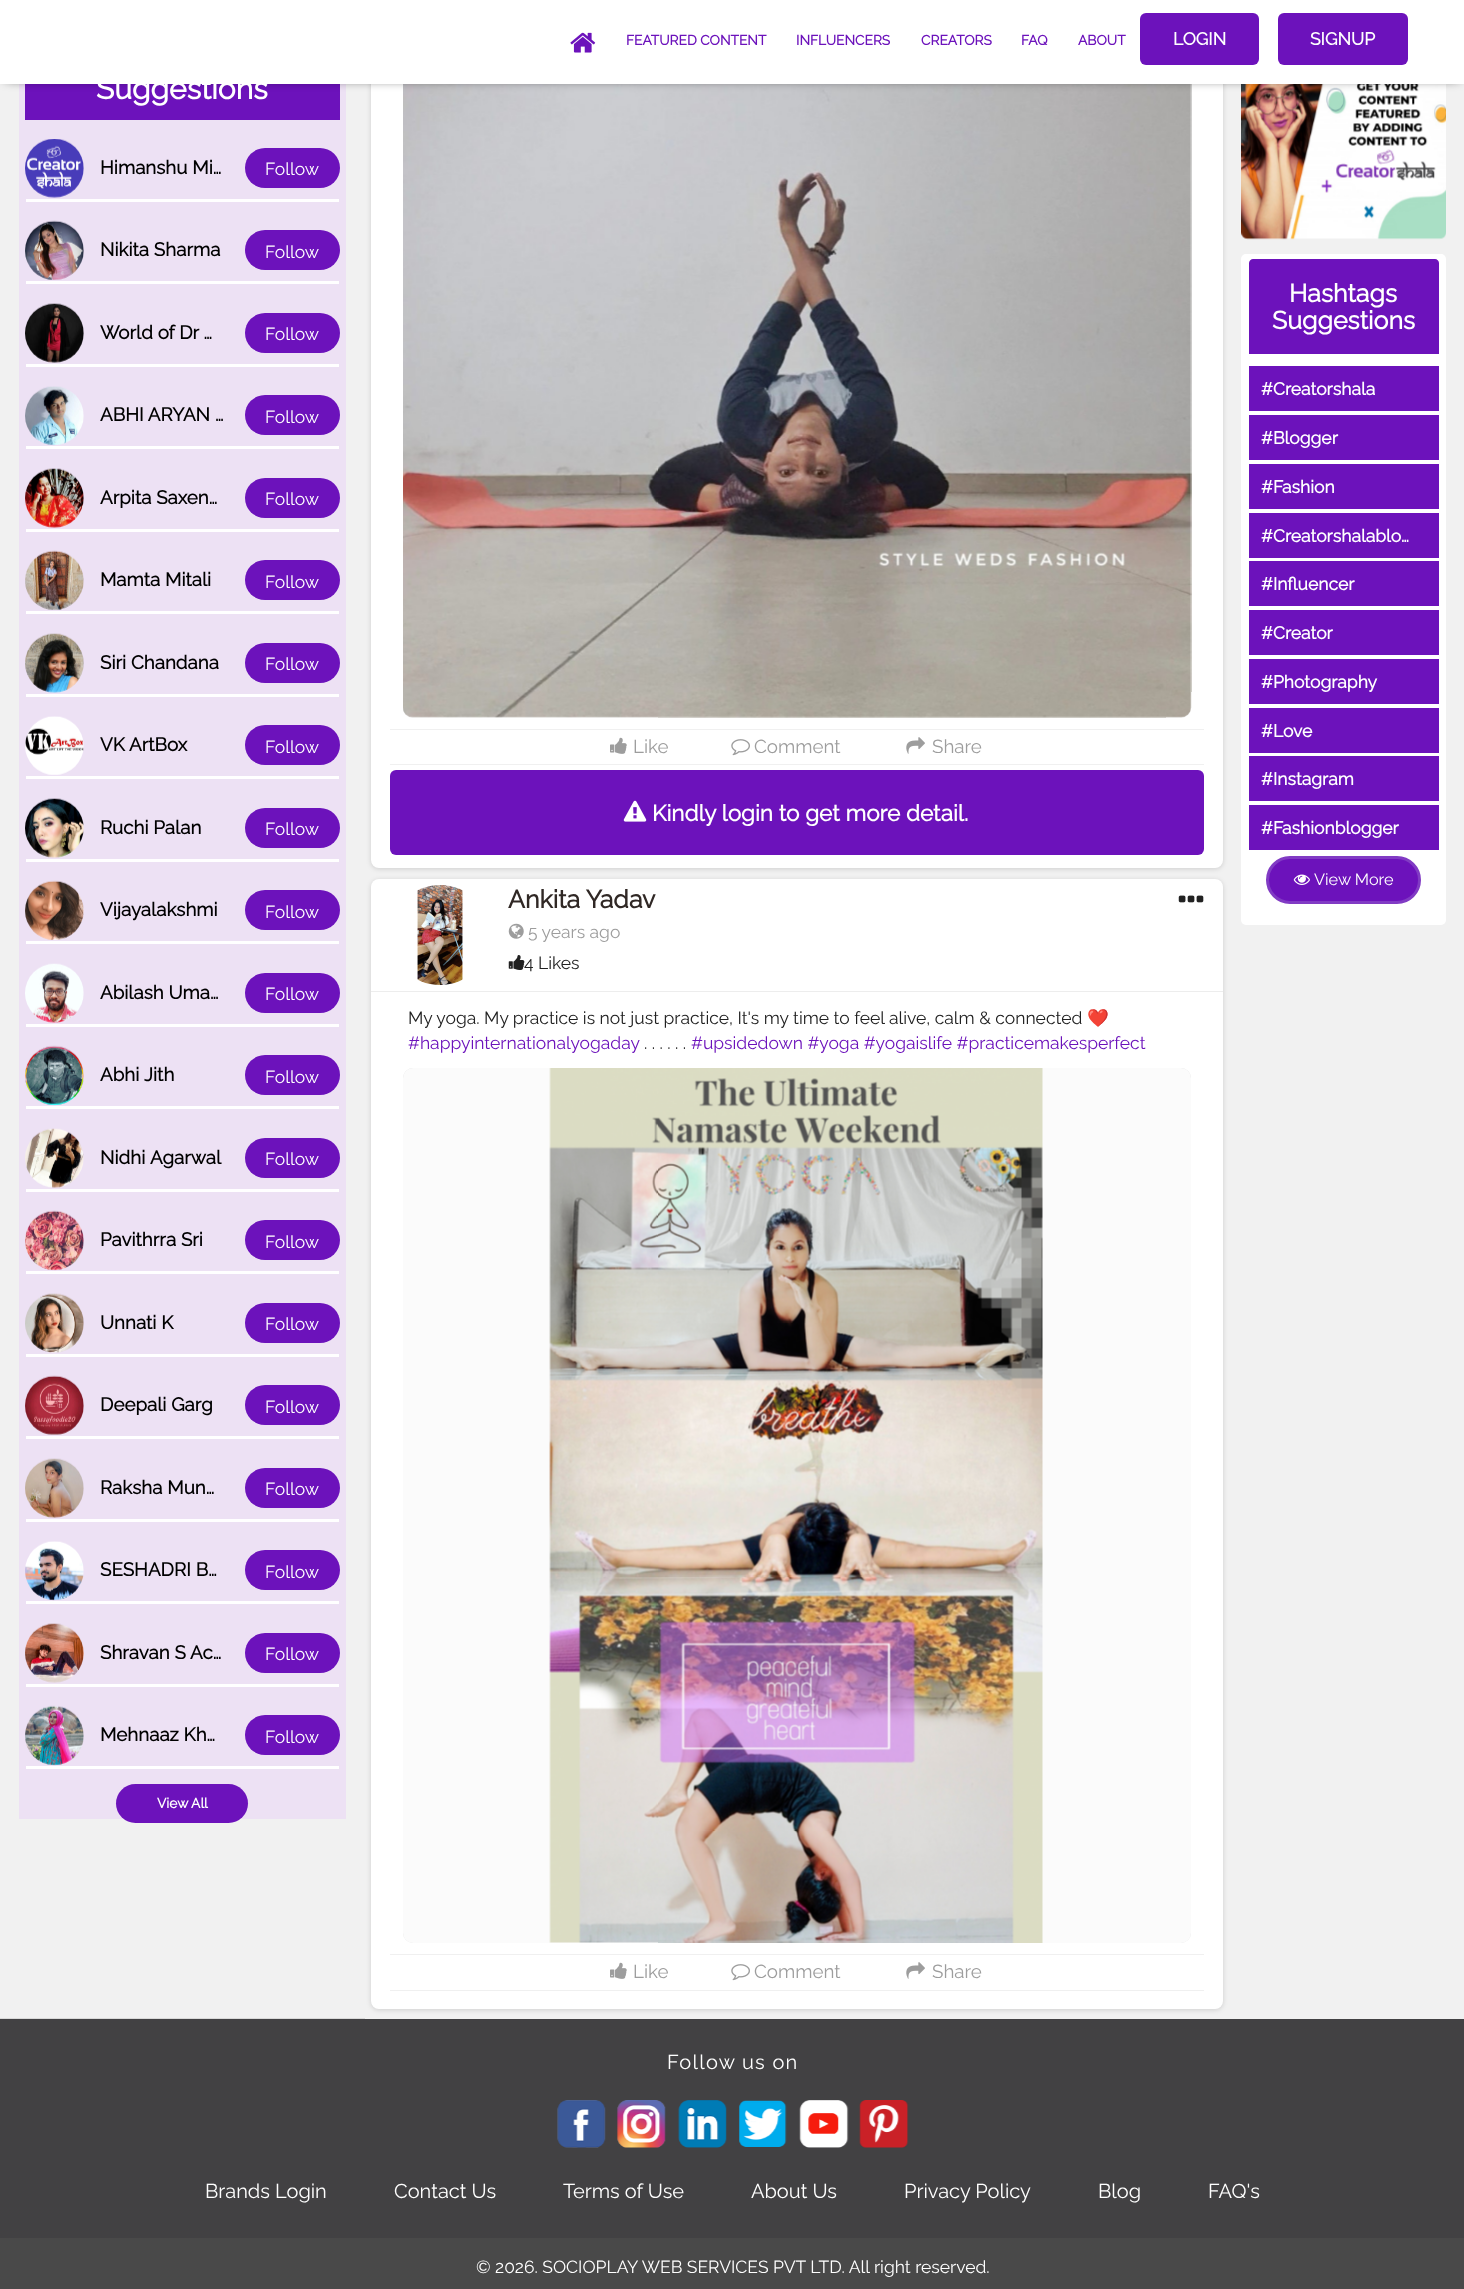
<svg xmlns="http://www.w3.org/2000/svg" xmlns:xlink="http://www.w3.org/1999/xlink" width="1464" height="2289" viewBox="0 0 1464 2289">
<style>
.cls-1{font:bold 13.75px Raleway;fill:#6c12bb}
.cls-2{font:bold 17.5px Raleway;fill:#ffffff}
.cls-3{font:bold 30px Raleway;fill:#ffffff}
.cls-4{font:bold 18.75px Raleway;fill:#000000}
.cls-5{font:100 17.5px Raleway;fill:#ffffff}
.cls-6{font:bold 13.75px Raleway;fill:#ffffff}
.cls-7{font:bold 25px Raleway;fill:#ffffff}
.cls-8{font:100 16.25px Raleway;fill:#ffffff}
.cls-9{font:100 18.75px Raleway;fill:#9d9d9d}
.cls-10{font:bold 22.5px Raleway;fill:#ffffff}
.cls-11{font:bold 25px Raleway;fill:#302825}
.cls-12{font:100 17.5px Raleway;fill:#9d9d9d}
.cls-13{font:100 17.5px Raleway;fill:#212121}
.cls-14{font:17.5px Noto Color Emoji;fill:#212121}
.cls-15{font:100 17.5px Raleway;fill:#6c12bb}
.cls-16{font:100 20px Raleway;letter-spacing:1.25px;fill:#ffffff}
.cls-17{font:100 20px Raleway;fill:#ffffff}
</style>
<defs>
<clipPath id="clip1"><rect x="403" y="-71" width="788" height="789" rx="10"/></clipPath>
<clipPath id="clip2"><rect x="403" y="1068" width="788" height="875" rx="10"/></clipPath>
</defs>
<rect width="100%" height="100%" fill="#f1f1f1"/>
<rect fill="#ede1f4" x="19" y="84" width="327" height="1735"/>
<rect fill="#6c12bb" x="25" y="84" width="315" height="36"/>
<image xlink:href="image21.png" x="1241" y="84" width="205" height="156"/>
<rect fill="#000000" fill-opacity="0.14" filter="blur(2.5px)" x="371" y="-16" width="852" height="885" rx="8"/>
<rect fill="#ffffff" x="371" y="-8" width="852" height="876" rx="8"/>
<g clip-path="url(#clip1)">
<rect fill="#9d9d9d" filter="blur(4.5px)" x="404" y="-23" width="786" height="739" rx="9"/>
</g>
<rect fill="#fbfbfb" x="403" y="-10" width="788" height="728" rx="10"/>
<image xlink:href="image23.png" x="403" y="84" width="789" height="634"/>
<rect fill="#000000" filter="blur(6px)" x="6" y="6" width="1453" height="72"/>
<rect fill="#ffffff" x="0" y="0" width="1464" height="84"/>
<image xlink:href="image0.png" x="570" y="32" width="26" height="21"/>
<rect fill="#6c12bb" x="1140" y="13" width="119" height="52" rx="6"/>
<rect fill="#6c12bb" x="1278" y="13" width="130" height="52" rx="6"/>
<rect fill="#000000" fill-opacity="0.14" filter="blur(2.5px)" x="371" y="880" width="852" height="1130" rx="8"/>
<rect fill="#d9d9d9" x="0" y="2018" width="365" height="1"/>
<image xlink:href="image1.png" x="25" y="139" width="59" height="59"/>
<rect fill="#6c12bb" x="245" y="148" width="95" height="40" rx="20"/>
<rect fill="#ffffff" x="26" y="199" width="313" height="3"/>
<image xlink:href="image2.png" x="25" y="220" width="59" height="60"/>
<rect fill="#6c12bb" x="245" y="230" width="95" height="40" rx="20"/>
<rect fill="#ffffff" x="26" y="281" width="313" height="3"/>
<image xlink:href="image3.png" x="25" y="303" width="59" height="60"/>
<rect fill="#6c12bb" x="245" y="313" width="95" height="40" rx="20"/>
<rect fill="#ffffff" x="26" y="364" width="313" height="3"/>
<image xlink:href="image4.png" x="25" y="386" width="59" height="60"/>
<rect fill="#6c12bb" x="245" y="395" width="95" height="40" rx="20"/>
<rect fill="#ffffff" x="26" y="446" width="313" height="3"/>
<image xlink:href="image5.png" x="25" y="468" width="59" height="60"/>
<rect fill="#6c12bb" x="245" y="478" width="95" height="40" rx="20"/>
<rect fill="#ffffff" x="26" y="529" width="313" height="3"/>
<image xlink:href="image6.png" x="25" y="550" width="59" height="60"/>
<rect fill="#6c12bb" x="245" y="560" width="95" height="40" rx="20"/>
<rect fill="#ffffff" x="26" y="611" width="313" height="3"/>
<image xlink:href="image7.png" x="25" y="633" width="59" height="60"/>
<rect fill="#6c12bb" x="245" y="643" width="95" height="40" rx="20"/>
<rect fill="#ffffff" x="26" y="694" width="313" height="3"/>
<image xlink:href="image8.png" x="25" y="716" width="59" height="59"/>
<rect fill="#6c12bb" x="245" y="725" width="95" height="40" rx="20"/>
<rect fill="#ffffff" x="26" y="776" width="313" height="3"/>
<image xlink:href="image9.png" x="25" y="798" width="59" height="60"/>
<rect fill="#6c12bb" x="245" y="808" width="95" height="40" rx="20"/>
<rect fill="#ffffff" x="26" y="859" width="313" height="3"/>
<image xlink:href="image10.png" x="25" y="880" width="59" height="60"/>
<rect fill="#6c12bb" x="245" y="890" width="95" height="40" rx="20"/>
<rect fill="#ffffff" x="26" y="941" width="313" height="3"/>
<image xlink:href="image11.png" x="25" y="963" width="59" height="60"/>
<rect fill="#6c12bb" x="245" y="973" width="95" height="40" rx="20"/>
<rect fill="#ffffff" x="26" y="1024" width="313" height="3"/>
<image xlink:href="image12.png" x="25" y="1045" width="59" height="61"/>
<rect fill="#6c12bb" x="245" y="1055" width="95" height="40" rx="20"/>
<rect fill="#ffffff" x="26" y="1106" width="313" height="3"/>
<image xlink:href="image13.png" x="25" y="1128" width="59" height="60"/>
<rect fill="#6c12bb" x="245" y="1138" width="95" height="40" rx="20"/>
<rect fill="#ffffff" x="26" y="1189" width="313" height="3"/>
<image xlink:href="image14.png" x="25" y="1210" width="59" height="61"/>
<rect fill="#6c12bb" x="245" y="1220" width="95" height="40" rx="20"/>
<rect fill="#ffffff" x="26" y="1271" width="313" height="3"/>
<image xlink:href="image15.png" x="25" y="1293" width="59" height="60"/>
<rect fill="#6c12bb" x="245" y="1303" width="95" height="40" rx="20"/>
<rect fill="#ffffff" x="26" y="1354" width="313" height="3"/>
<image xlink:href="image16.png" x="25" y="1375" width="59" height="60"/>
<rect fill="#6c12bb" x="245" y="1385" width="95" height="40" rx="20"/>
<rect fill="#ffffff" x="26" y="1436" width="313" height="3"/>
<image xlink:href="image17.png" x="25" y="1458" width="59" height="60"/>
<rect fill="#6c12bb" x="245" y="1468" width="95" height="40" rx="20"/>
<rect fill="#ffffff" x="26" y="1519" width="313" height="3"/>
<image xlink:href="image18.png" x="25" y="1541" width="59" height="60"/>
<rect fill="#6c12bb" x="245" y="1550" width="95" height="40" rx="20"/>
<rect fill="#ffffff" x="26" y="1601" width="313" height="3"/>
<image xlink:href="image19.png" x="25" y="1623" width="59" height="60"/>
<rect fill="#6c12bb" x="245" y="1633" width="95" height="40" rx="20"/>
<rect fill="#ffffff" x="26" y="1684" width="313" height="3"/>
<image xlink:href="image20.png" x="25" y="1705" width="59" height="61"/>
<rect fill="#6c12bb" x="245" y="1715" width="95" height="40" rx="20"/>
<rect fill="#ffffff" x="26" y="1766" width="313" height="3"/>
<rect fill="#6c12bb" x="116" y="1784" width="132" height="39" rx="19.5"/>
<rect fill="#ffffff" x="1241" y="254" width="205" height="671" rx="5"/>
<path fill="#6c12bb" d="M1253 259H1435C1437 259 1439 261 1439 263V354H1249V263C1249 261 1251 259 1253 259Z"/>
<rect fill="#6c12bb" x="1249" y="366" width="190" height="45"/>
<rect fill="#6c12bb" x="1249" y="415" width="190" height="45"/>
<rect fill="#6c12bb" x="1249" y="464" width="190" height="45"/>
<rect fill="#6c12bb" x="1249" y="513" width="190" height="45"/>
<rect fill="#6c12bb" x="1249" y="561" width="190" height="45"/>
<rect fill="#6c12bb" x="1249" y="610" width="190" height="45"/>
<rect fill="#6c12bb" x="1249" y="659" width="190" height="45"/>
<rect fill="#6c12bb" x="1249" y="708" width="190" height="45"/>
<rect fill="#6c12bb" x="1249" y="756" width="190" height="45"/>
<rect fill="#6c12bb" x="1249" y="805" width="190" height="45"/>
<rect fill="#6c12bb" stroke="#813bc4" stroke-width="3" x="1267.5" y="857.5" width="152" height="45" rx="22.5"/>
<image xlink:href="image22.png" x="1293" y="874" width="17" height="11"/>
<rect fill="#f0f0f0" x="390" y="729" width="814" height="1"/>
<rect fill="#f0f0f0" x="390" y="764" width="814" height="1"/>
<image xlink:href="image24.png" x="610" y="737" width="17" height="17"/>
<image xlink:href="image25.png" x="731" y="739" width="19" height="17"/>
<image xlink:href="image26.png" x="906" y="737" width="19" height="17"/>
<rect fill="#6c12bb" x="390" y="770" width="814" height="85" rx="6"/>
<image xlink:href="image27.png" x="623" y="800" width="24" height="22"/>
<rect fill="#ffffff" x="371" y="879" width="852" height="1130" rx="8"/>
<rect fill="#ededed" x="371" y="991" width="852" height="1"/>
<image xlink:href="image28.png" x="417" y="885" width="46" height="100"/>
<image xlink:href="image29.png" x="508" y="923" width="16" height="16"/>
<image xlink:href="image30.png" x="508" y="955" width="17" height="15"/>
<image xlink:href="image31.png" x="1178" y="895" width="26" height="8"/>
<g clip-path="url(#clip2)">
<rect fill="#9d9d9d" filter="blur(4.5px)" x="404" y="1069" width="786" height="872" rx="9"/>
</g>
<rect fill="#fbfbfb" x="403" y="1068" width="788" height="875" rx="10"/>
<image xlink:href="image32.png" x="549" y="1068" width="494" height="875"/>
<rect fill="#f0f0f0" x="390" y="1954" width="814" height="1"/>
<rect fill="#f0f0f0" x="390" y="1990" width="814" height="1"/>
<image xlink:href="image24.png" x="610" y="1962" width="17" height="17"/>
<image xlink:href="image25.png" x="731" y="1964" width="19" height="17"/>
<image xlink:href="image26.png" x="906" y="1962" width="19" height="17"/>
<rect fill="#424143" x="0" y="2019" width="1464" height="219"/>
<rect fill="#494949" x="0" y="2238" width="1464" height="51"/>
<image xlink:href="image33.png" x="557" y="2100" width="49" height="48"/>
<image xlink:href="image34.png" x="617" y="2100" width="49" height="48"/>
<image xlink:href="image35.png" x="678" y="2100" width="49" height="48"/>
<image xlink:href="image36.png" x="739" y="2100" width="48" height="47"/>
<image xlink:href="image37.png" x="799" y="2100" width="50" height="48"/>
<image xlink:href="image38.png" x="859" y="2100" width="50" height="48"/>
<text class="cls-1" x="626" y="45">FEATURED CONTENT</text>
<text class="cls-1" x="796" y="45">INFLUENCERS</text>
<text class="cls-1" x="921" y="45">CREATORS</text>
<text class="cls-1" x="1021" y="45">FAQ</text>
<text class="cls-1" x="1078" y="45">ABOUT</text>
<text class="cls-2" x="1173" y="45">LOGIN</text>
<text class="cls-2" x="1310" y="45">SIGNUP</text>
<text class="cls-3" x="96" y="99">Suggestions</text>
<text class="cls-4" x="100" y="174">Himanshu Mi…</text>
<text class="cls-5" x="265" y="175">Follow</text>
<text class="cls-4" x="100" y="256">Nikita Sharma</text>
<text class="cls-5" x="265" y="258">Follow</text>
<text class="cls-4" x="100" y="339">World of Dr …</text>
<text class="cls-5" x="265" y="340">Follow</text>
<text class="cls-4" x="100" y="421">ABHI ARYAN …</text>
<text class="cls-5" x="265" y="423">Follow</text>
<text class="cls-4" x="100" y="504">Arpita Saxen…</text>
<text class="cls-5" x="265" y="505">Follow</text>
<text class="cls-4" x="100" y="586">Mamta Mitali</text>
<text class="cls-5" x="265" y="588">Follow</text>
<text class="cls-4" x="100" y="669">Siri Chandana</text>
<text class="cls-5" x="265" y="670">Follow</text>
<text class="cls-4" x="100" y="751">VK</text>
<text class="cls-4" x="129" y="751">ArtBox</text>
<text class="cls-5" x="265" y="753">Follow</text>
<text class="cls-4" x="100" y="834">Ruchi Palan</text>
<text class="cls-5" x="265" y="835">Follow</text>
<text class="cls-4" x="100" y="916">Vijayalakshmi</text>
<text class="cls-5" x="265" y="918">Follow</text>
<text class="cls-4" x="100" y="999">Abilash Uma…</text>
<text class="cls-5" x="265" y="1000">Follow</text>
<text class="cls-4" x="100" y="1081">Abhi</text>
<text class="cls-4" x="144" y="1081">Jith</text>
<text class="cls-5" x="265" y="1083">Follow</text>
<text class="cls-4" x="100" y="1164">Nidhi</text>
<text class="cls-4" x="150" y="1164">Agarwal</text>
<text class="cls-5" x="265" y="1165">Follow</text>
<text class="cls-4" x="100" y="1246">Pavithrra Sri</text>
<text class="cls-5" x="265" y="1248">Follow</text>
<text class="cls-4" x="100" y="1329">Unnati K</text>
<text class="cls-5" x="265" y="1330">Follow</text>
<text class="cls-4" x="100" y="1411">Deepali Garg</text>
<text class="cls-5" x="265" y="1413">Follow</text>
<text class="cls-4" x="100" y="1494">Raksha Mun…</text>
<text class="cls-5" x="265" y="1495">Follow</text>
<text class="cls-4" x="100" y="1576">SESHADRI B…</text>
<text class="cls-5" x="265" y="1578">Follow</text>
<text class="cls-4" x="100" y="1659">Shravan S Ac…</text>
<text class="cls-5" x="265" y="1660">Follow</text>
<text class="cls-4" x="100" y="1741">Mehnaaz Kh…</text>
<text class="cls-5" x="265" y="1743">Follow</text>
<text class="cls-6" x="157" y="1808">View All</text>
<text class="cls-7" x="1289" y="302">Hashtags</text>
<text class="cls-7" x="1272" y="329">Suggestions</text>
<text class="cls-2" x="1261" y="395">#Creatorshala</text>
<text class="cls-2" x="1261" y="444">#Blogger</text>
<text class="cls-2" x="1261" y="493">#Fashion</text>
<text class="cls-2" x="1261" y="542">#Creatorshalablo…</text>
<text class="cls-2" x="1261" y="590">#Influencer</text>
<text class="cls-2" x="1261" y="639">#Creator</text>
<text class="cls-2" x="1261" y="688">#Photography</text>
<text class="cls-2" x="1261" y="737">#Love</text>
<text class="cls-2" x="1261" y="785">#Instagram</text>
<text class="cls-2" x="1261" y="834">#Fashionblogger</text>
<text class="cls-8" x="1314" y="885">View More</text>
<text class="cls-9" x="633" y="753">Like</text>
<text class="cls-9" x="754" y="753">Comment</text>
<text class="cls-9" x="932" y="753">Share</text>
<text class="cls-10" x="652" y="821">Kindly login to get more detail.</text>
<text class="cls-11" x="508" y="908">Ankita Yadav</text>
<text class="cls-12" x="528" y="938">5 years ago</text>
<text class="cls-13" x="524" y="969">4 Likes</text>
<text class="cls-13" x="408" y="1024">My yoga. My practice is not just practice, It's my time to feel alive, calm &amp; connected</text>
<text class="cls-14" x="1087" y="1024">❤️</text>
<text class="cls-15" x="408" y="1049">#happyinternationalyogaday</text>
<text class="cls-13" x="644" y="1049">. . . . . .</text>
<text class="cls-15" x="691" y="1049">#upsidedown #yoga #yogaislife #practicemakesperfect</text>
<text class="cls-9" x="633" y="1978">Like</text>
<text class="cls-9" x="754" y="1978">Comment</text>
<text class="cls-9" x="932" y="1978">Share</text>
<text class="cls-16" x="667" y="2069">Follow us on</text>
<text class="cls-17" x="205" y="2198">Brands Login</text>
<text class="cls-17" x="394" y="2198">Contact Us</text>
<text class="cls-17" x="563" y="2198">Terms of Use</text>
<text class="cls-17" x="751" y="2198">About Us</text>
<text class="cls-17" x="904" y="2198">Privacy Policy</text>
<text class="cls-17" x="1098" y="2198">Blog</text>
<text class="cls-17" x="1208" y="2198">FAQ's</text>
<text class="cls-5" x="476" y="2273">© 2026. SOCIOPLAY WEB SERVICES PVT LTD. All right reserved.</text>
</svg>
